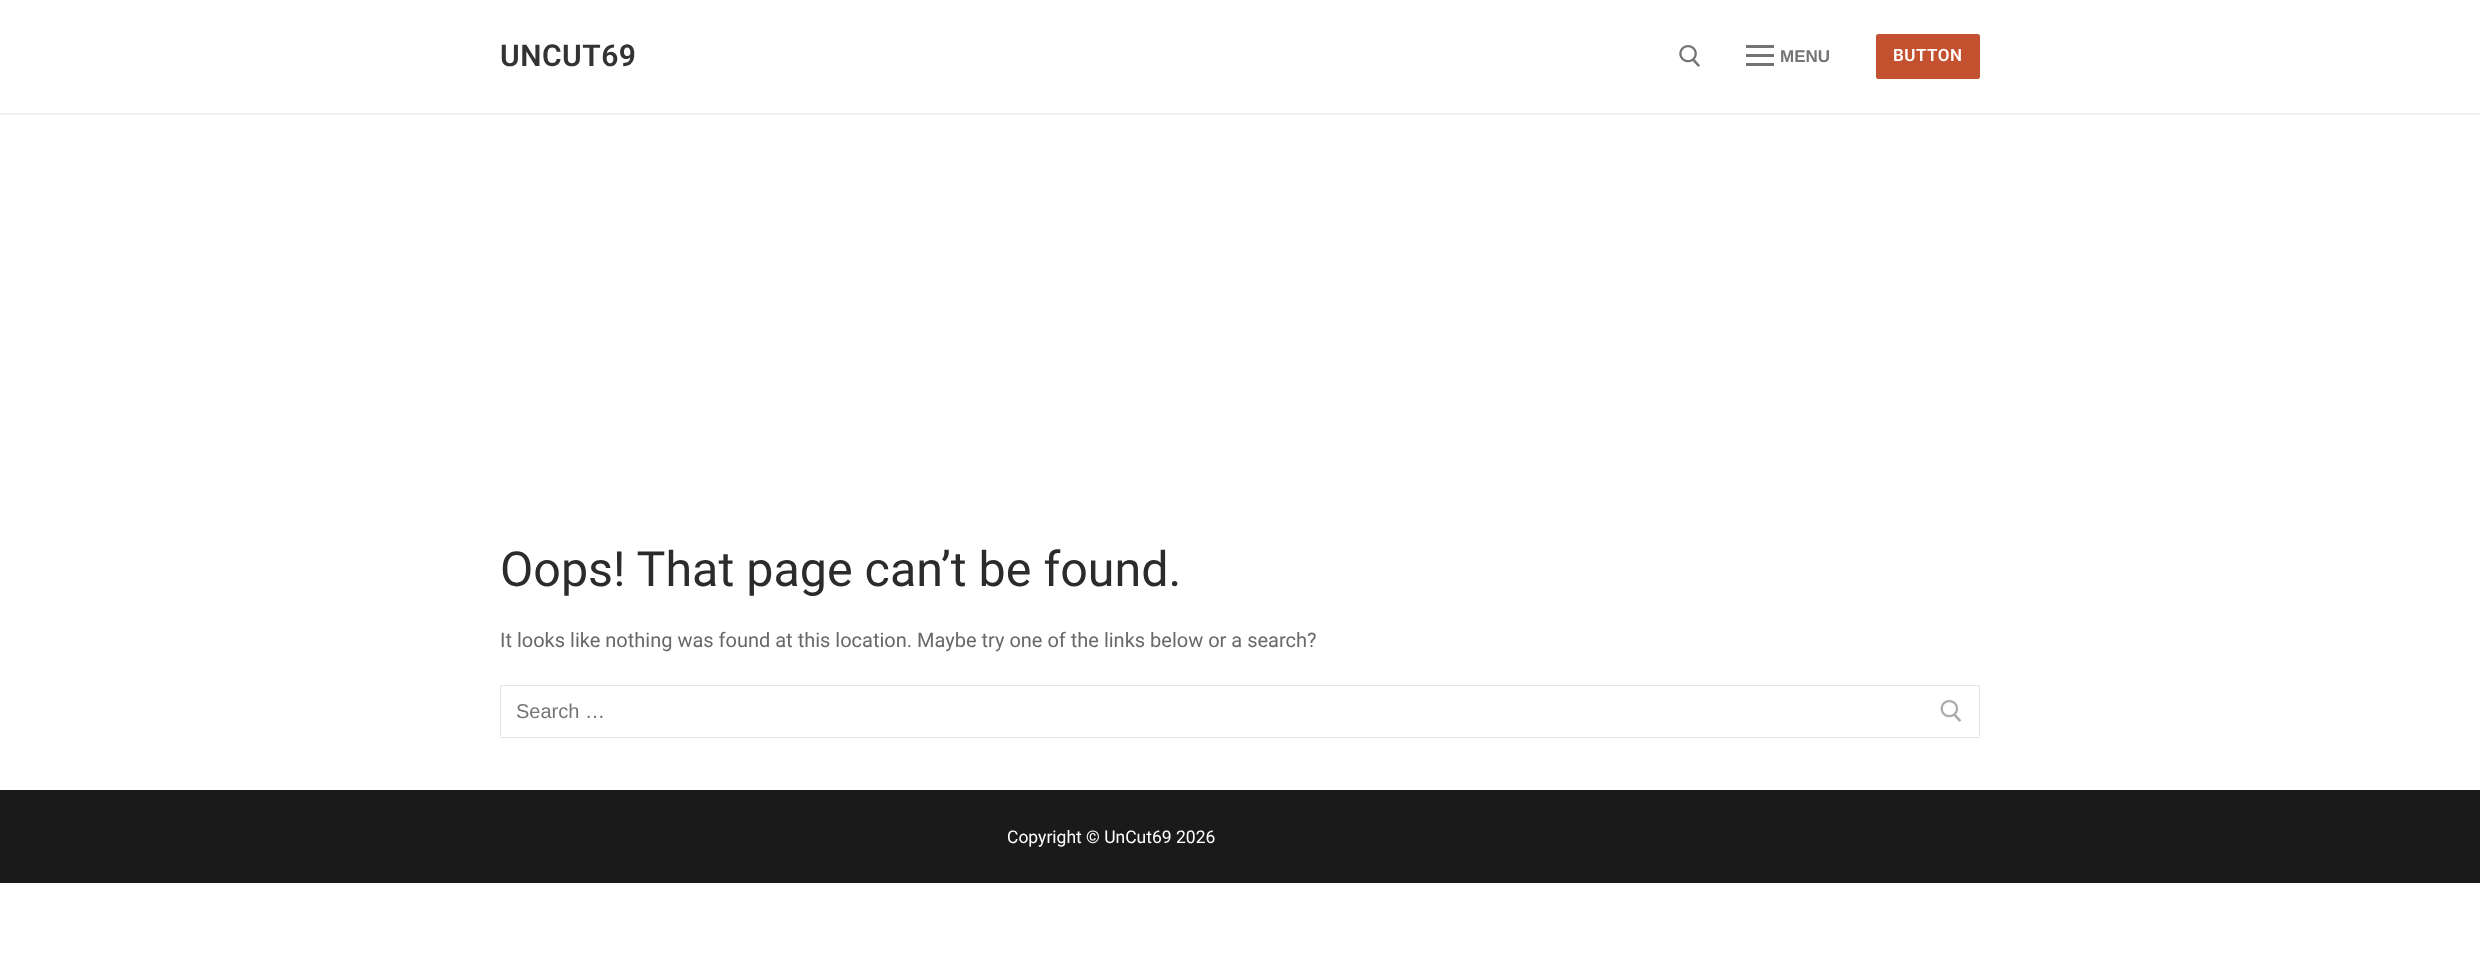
<svg xmlns="http://www.w3.org/2000/svg" xmlns:xlink="http://www.w3.org/1999/xlink" width="2480" height="977" viewBox="0 0 2480 977">
<style>
.cls-1{font:600 30px Roboto;letter-spacing:0.5px;fill:#333333}
.cls-2{font:bold 17px Liberation Sans;fill:#757575}
.cls-3{font:600 17px Roboto;letter-spacing:0.5px;fill:#ffffff}
.cls-4{font:48.4px Roboto;fill:#2b2b2b}
.cls-5{font:20px Roboto;fill:#686868}
.cls-6{font:20px Liberation Sans;fill:#757575}
.cls-7{font:17.5px Roboto;fill:#ffffff}
</style>
<rect width="100%" height="100%" fill="#ffffff"/>
<rect fill="#e1e5ea" filter="blur(1px)" x="0" y="1" width="2480" height="113"/>
<rect fill="#ffffff" x="0" y="0" width="2480" height="113"/>
<image xlink:href="image0.png" x="1679" y="45" width="21" height="22"/>
<rect fill="#737373" x="1746" y="54" width="28" height="3"/>
<rect fill="#737373" x="1746" y="45" width="28" height="3"/>
<rect fill="#737373" x="1746" y="63" width="28" height="3"/>
<rect fill="#c3512f" x="1876" y="34" width="104" height="45" rx="2.5"/>
<rect fill="none" stroke="#e5e5e5" x="500.5" y="685.5" width="1479" height="52" rx="0.5"/>
<image xlink:href="image1.png" x="1940" y="700" width="22" height="22"/>
<rect fill="#1a1a1a" x="0" y="790" width="2480" height="93"/>
<text class="cls-1" x="500" y="66">UNCUT69</text>
<text class="cls-2" x="1780" y="62">MENU</text>
<text class="cls-3" x="1893" y="61">BUTTON</text>
<text class="cls-4" x="500" y="586">Oops! That page can’t be found.</text>
<text class="cls-5" x="500" y="647">It looks like nothing was found at this location. Maybe try one of the links below or a search?</text>
<text class="cls-6" x="516" y="718">Search …</text>
<text class="cls-7" x="1007" y="843">Copyright © UnCut69 2026</text>
</svg>
